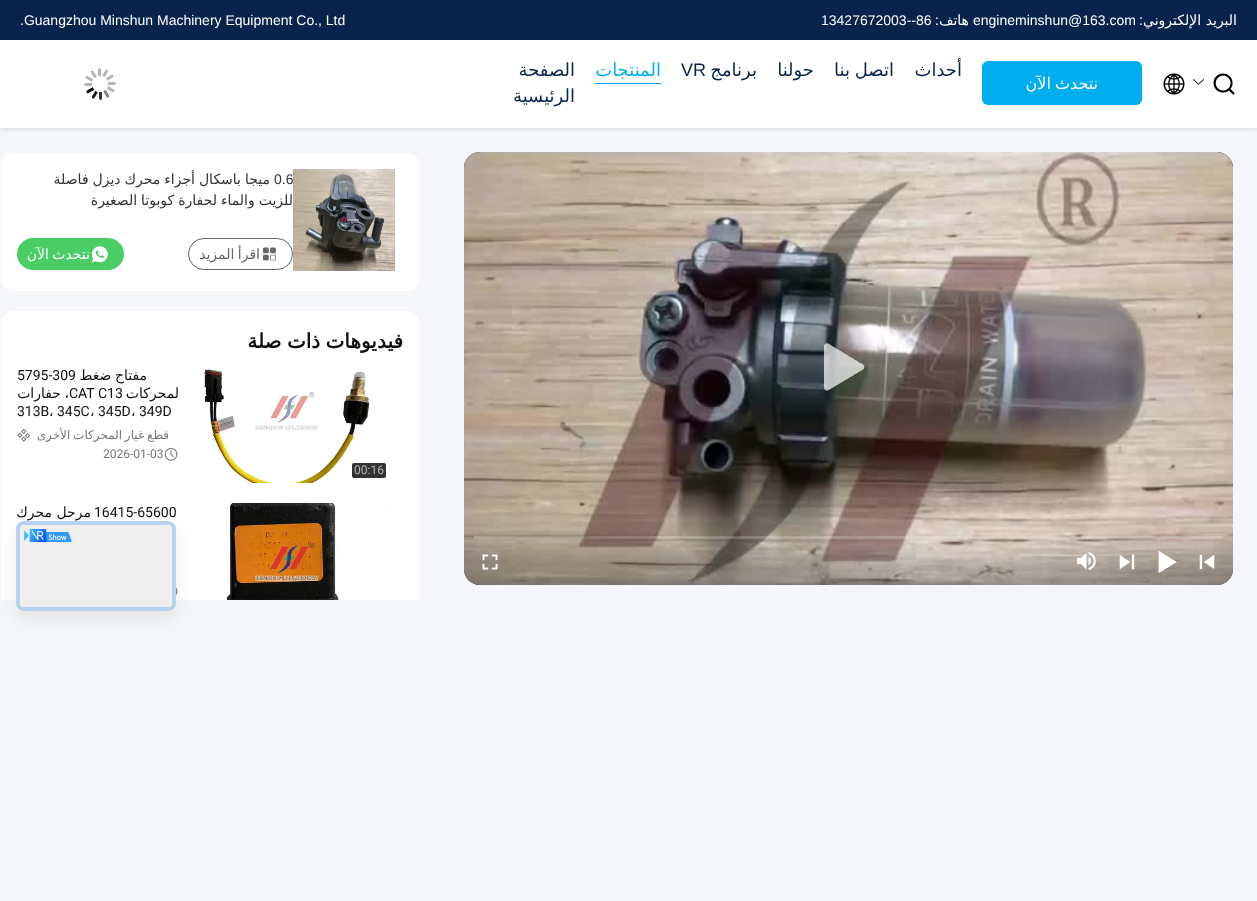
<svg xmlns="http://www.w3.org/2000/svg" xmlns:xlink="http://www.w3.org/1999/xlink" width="1257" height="901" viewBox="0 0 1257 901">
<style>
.cls-1{font:14px DejaVu Sans;direction:rtl;fill:#ffffff}
.cls-2{font:14px Liberation Sans;direction:rtl;fill:#ffffff}
.cls-3{font:14px Liberation Sans;fill:#ffffff}
.cls-4{font:16px DejaVu Sans;direction:rtl;fill:#ffffff}
.cls-5{font:18px DejaVu Sans;direction:rtl;fill:#08244c}
.cls-6{font:18px Liberation Sans;fill:#08244c}
.cls-7{font:18px DejaVu Sans;direction:rtl;fill:#00aeef}
.cls-8{font:14px Liberation Sans;fill:#333333}
.cls-9{font:14px DejaVu Sans;direction:rtl;fill:#333333}
.cls-10{font:14px DejaVu Sans;direction:rtl;fill:#666666}
.cls-11{font:bold 20px DejaVu Sans;direction:rtl;fill:#111111}
.cls-12{font:14px DejaVu Sans;direction:rtl;fill:#111111}
.cls-13{font:14px Roboto;fill:#111111}
.cls-14{font:14px DejaVu Sans;fill:#111111}
.cls-15{font:12px DejaVu Sans;direction:rtl;fill:#777777}
.cls-16{font:12px Roboto;fill:#777777}
.cls-17{font:12px Roboto;fill:#b6b6b6}
</style>
<defs>
<clipPath id="clip1"><rect x="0" y="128" width="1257" height="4"/></clipPath>
<linearGradient id="g1" gradientUnits="userSpaceOnUse" x1="849" y1="585" x2="849" y2="515"><stop offset="0.05" stop-color="#0e0e0d" stop-opacity="0.3"/><stop offset="0.6" stop-color="#0e0e0e" stop-opacity="0.05"/><stop offset="1" stop-color="#0e0e0e" stop-opacity="0"/></linearGradient>
<clipPath id="clip2"><rect x="17" y="169" width="276" height="42"/></clipPath>
</defs>
<rect width="100%" height="100%" fill="#f4f6f9"/>
<rect fill="#ffffff" x="0" y="40" width="1257" height="88"/>
<rect fill="#08244c" x="0" y="0" width="1257" height="40"/>
<g clip-path="url(#clip1)">
<rect fill="#000000" fill-opacity="0.1" filter="blur(2px)" x="0" y="42" width="1257" height="88"/>
</g>
<image xlink:href="image0.png" x="1213" y="73" width="22" height="22"/>
<image xlink:href="image1.png" x="1193" y="79" width="11" height="6"/>
<image xlink:href="image2.png" x="1163" y="73" width="22" height="22"/>
<rect fill="#00aeef" x="982" y="61" width="160" height="44" rx="6"/>
<rect fill="#00aeef" x="595" y="83" width="66" height="1"/>
<image xlink:href="image3.png" x="84" y="68" width="32" height="32"/>
<rect fill="#000000" x="464" y="152" width="769" height="433" rx="16"/>
<image xlink:href="image4.png" x="464" y="152" width="769" height="433"/>
<image xlink:href="image5.png" x="824" y="343" width="41" height="48"/>
<path fill="url(#g1)" d="M464 515H1233V569C1233 578 1226 585 1217 585H480C471 585 464 578 464 569Z"/>
<rect fill="#ffffff" fill-opacity="0.2" x="474" y="536" width="749" height="3"/>
<image xlink:href="image6.png" x="1199" y="554" width="16" height="16"/>
<image xlink:href="image7.png" x="1158" y="550" width="19" height="23"/>
<image xlink:href="image8.png" x="1119" y="554" width="16" height="16"/>
<image xlink:href="image9.png" x="1077" y="552" width="19" height="18"/>
<image xlink:href="image10.png" x="482" y="554" width="16" height="16"/>
<rect fill="#ffffff" x="1" y="153" width="418" height="138" rx="12"/>
<image xlink:href="image11.png" x="293" y="169" width="102" height="102"/>
<rect fill="none" stroke="#666666" x="188.5" y="238.5" width="104" height="31" rx="15.5"/>
<image xlink:href="image12.png" x="263" y="247" width="13" height="14"/>
<rect fill="#4bcd65" x="17" y="238" width="107" height="32" rx="16"/>
<image xlink:href="image13.png" x="91" y="246" width="17" height="17"/>
<path fill="#ffffff" d="M13 311H407C413.5 311 419 316.5 419 323V600H1V323C1 316.5 6.5 311 13 311Z"/>
<image xlink:href="image14.png" x="17" y="429" width="13" height="13"/>
<image xlink:href="image15.png" x="164" y="448" width="14" height="13"/>
<rect fill="#eeeeee" x="183" y="366" width="208" height="117" rx="10"/>
<image xlink:href="image16.png" x="183" y="366" width="208" height="117"/>
<rect fill="#333333" x="352" y="463" width="34" height="15" rx="2"/>
<path fill="#eeeeee" d="M193 503H381C386.5 503 391 507.5 391 513V600H183V513C183 507.5 187.5 503 193 503Z"/>
<image xlink:href="image17.png" x="183" y="503" width="208" height="97"/>
<image xlink:href="image18.png" x="176" y="587" width="2" height="8"/>
<rect fill="#000000" fill-opacity="0.08" filter="blur(8px)" x="16" y="529" width="160" height="90" rx="8"/>
<rect fill="#eeeeee" x="16" y="521" width="160" height="90" rx="8"/>
<rect fill="none" stroke="#0478ed" stroke-opacity="0.24" stroke-width="4" x="18" y="523" width="156" height="86" rx="6"/>
<rect fill="#eeeeee" x="20" y="525" width="152" height="82" rx="4"/>
<image xlink:href="image19.png" x="24" y="529" width="48" height="13"/>
<text class="cls-1" x="1237" y="25">البريد الإلكتروني</text>
<text class="cls-2" x="1143" y="25">:</text>
<text class="cls-3" x="973" y="25">engineminshun@163.com</text>
<text class="cls-1" x="969" y="25">هاتف</text>
<text class="cls-2" x="939" y="25">:</text>
<text class="cls-3" x="821" y="25">13427672003--86</text>
<text class="cls-3" x="20" y="25">.Guangzhou Minshun Machinery Equipment Co., Ltd</text>
<text class="cls-4" x="1098" y="89" word-spacing="-1">نتحدث الآن</text>
<text class="cls-5" x="962" y="76">أحداث</text>
<text class="cls-5" x="894" y="76" word-spacing="-1">اتصل بنا</text>
<text class="cls-5" x="814" y="76">حولنا</text>
<text class="cls-5" x="757" y="76">برنامج</text>
<text class="cls-6" x="681" y="76">VR</text>
<text class="cls-7" x="661" y="76">المنتجات</text>
<text class="cls-5"><tspan x="575" y="76">الصفحة</tspan><tspan x="575" y="102">الرئيسية</tspan></text>
<text class="cls-8" x="274" y="184">0.6</text>
<text class="cls-9" x="270" y="184" word-spacing="-0.5">ميجا باسكال أجزاء محرك ديزل فاصلة</text>
<g clip-path="url(#clip2)">
<text class="cls-9" x="293" y="205" word-spacing="-0.5">للزيت والماء لحفارة كوبوتا الصغيرة</text>
</g>
<text class="cls-10" x="260" y="259" word-spacing="-1">اقرأ المزيد</text>
<text class="cls-1" x="90" y="259" word-spacing="-1">نتحدث الآن</text>
<text class="cls-11" x="403" y="348" word-spacing="-1">فيديوهات ذات صلة</text>
<text class="cls-12" x="147" y="380" word-spacing="-1">مفتاح ضغط</text>
<text class="cls-13" x="17" y="380">5795-309</text>
<text class="cls-12" x="179" y="398">لمحركات</text>
<text class="cls-13" x="69" y="398">CAT C13</text>
<text class="cls-12" x="69" y="398" word-spacing="-1">، حفارات</text>
<text class="cls-13" x="139" y="416">349D</text>
<text class="cls-14" x="131" y="416">،</text>
<text class="cls-13" x="98" y="416">345D</text>
<text class="cls-14" x="90" y="416">،</text>
<text class="cls-13" x="57" y="416">345C</text>
<text class="cls-14" x="49" y="416">،</text>
<text class="cls-13" x="17" y="416">313B</text>
<text class="cls-15" x="169" y="439" word-spacing="-1">قطع غيار المحركات الأخرى</text>
<text class="cls-16" x="103" y="458">2026-01-03</text>
<text class="cls-17" x="354" y="474">00:16</text>
<text class="cls-13" x="94" y="517">16415-65600</text>
<text class="cls-12" x="91" y="517">مرحل محرك</text>
</svg>
